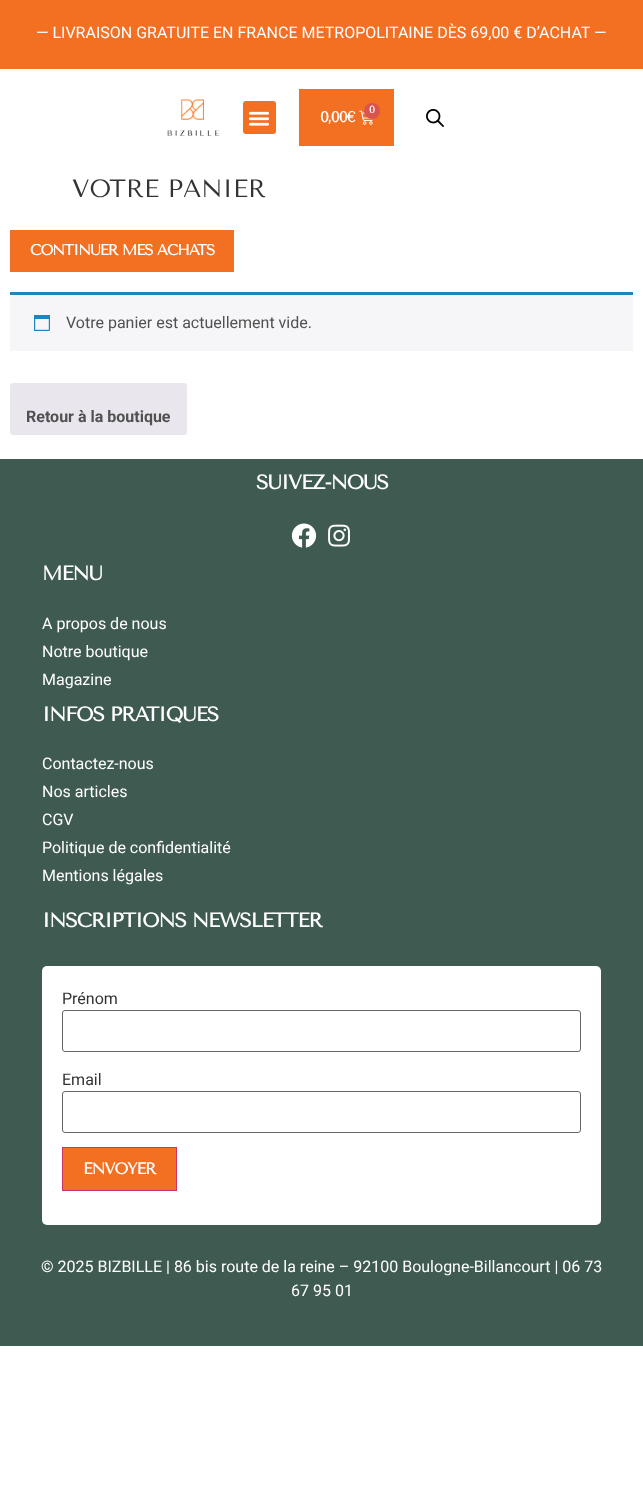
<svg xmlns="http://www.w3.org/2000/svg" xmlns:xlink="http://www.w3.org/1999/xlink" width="643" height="1489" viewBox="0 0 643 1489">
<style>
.cls-1{font:16px Roboto;fill:#ffffff}
.cls-2{font:bold 10px Tenor Sans;letter-spacing:-1px;fill:#ffffff}
.cls-3{font:bold 15px Tenor Sans;letter-spacing:-1px;fill:#ffffff}
.cls-4{font:25px Tenor Sans;fill:#333333}
.cls-5{font:16px Roboto;fill:#515151}
.cls-6{font:bold 16px Roboto;fill:#515151}
.cls-7{font:bold 20px Tenor Sans;letter-spacing:-1px;fill:#ffffff}
.cls-8{font:16px Roboto;fill:#333333}
.cls-9{font:bold 16px Tenor Sans;letter-spacing:-1px;fill:#ffffff}
</style>
<rect width="100%" height="100%" fill="#ffffff"/>
<rect fill="#f37022" x="0" y="0" width="643" height="69"/>
<image xlink:href="image0.png" x="167" y="99" width="53" height="38"/>
<rect fill="#f37022" x="243" y="101" width="33" height="33" rx="3"/>
<image xlink:href="image1.png" x="248" y="111" width="22" height="15"/>
<rect fill="#f37022" x="299" y="89" width="95" height="57"/>
<image xlink:href="image2.png" x="359" y="110" width="14" height="15"/>
<circle fill="#d9534f" cx="372" cy="111" r="8"/>
<image xlink:href="image3.png" x="426" y="109" width="18" height="18"/>
<rect fill="#f37022" x="10" y="230" width="224" height="42"/>
<rect fill="#f6f5f8" x="10" y="295" width="623" height="56"/>
<rect fill="#1e85be" x="10" y="292" width="623" height="3"/>
<image xlink:href="image4.png" x="34" y="315" width="16" height="16"/>
<rect fill="#e9e6ed" x="10" y="383" width="177" height="52" rx="3"/>
<rect fill="#3f5a51" x="0" y="459" width="643" height="887"/>
<image xlink:href="image5.png" x="291" y="523" width="26" height="25"/>
<image xlink:href="image6.png" x="328" y="524" width="22" height="23"/>
<rect fill="#ffffff" x="42" y="966" width="559" height="259" rx="5"/>
<rect fill="none" stroke="#666666" x="62.5" y="1010.5" width="518" height="41" rx="2.5"/>
<rect fill="none" stroke="#666666" x="62.5" y="1091.5" width="518" height="41" rx="2.5"/>
<rect fill="#f37022" stroke="#cc3366" x="62.5" y="1147.5" width="114" height="43"/>
<text class="cls-1" x="36" y="38">— LIVRAISON GRATUITE EN FRANCE METROPOLITAINE DÈS 69,00 € D’ACHAT —</text>
<text class="cls-2" x="369" y="113">0</text>
<text class="cls-3" x="320" y="122">0,00€</text>
<text class="cls-4" x="72" y="197">VOTRE PANIER</text>
<text class="cls-3" x="30" y="255">CONTINUER MES ACHATS</text>
<text class="cls-5" x="66" y="328">Votre panier est actuellement vide.</text>
<text class="cls-6" x="26" y="422">Retour à la boutique</text>
<text class="cls-7" x="256" y="489">SUIVEZ-NOUS</text>
<text class="cls-7" x="42" y="580">MENU</text>
<text class="cls-1"><tspan x="42" y="629">A propos de nous</tspan><tspan x="42" y="657">Notre boutique</tspan><tspan x="42" y="685">Magazine</tspan></text>
<text class="cls-7" x="42" y="721">INFOS PRATIQUES</text>
<text class="cls-1"><tspan x="42" y="769">Contactez-nous</tspan><tspan x="42" y="797">Nos articles</tspan><tspan x="42" y="825">CGV</tspan><tspan x="42" y="853">Politique de confidentialité</tspan><tspan x="42" y="881">Mentions légales</tspan></text>
<text class="cls-7" x="42" y="927">INSCRIPTIONS NEWSLETTER</text>
<text class="cls-8" x="62" y="1004">Prénom</text>
<text class="cls-8" x="62" y="1085">Email</text>
<text class="cls-9" x="83" y="1174">ENVOYER</text>
<text class="cls-1" x="41" y="1272">© 2025 BIZBILLE | 86 bis route de la reine – 92100 Boulogne-Billancourt | 06 73</text>
<text class="cls-1" x="291" y="1296">67 95 01</text>
</svg>
